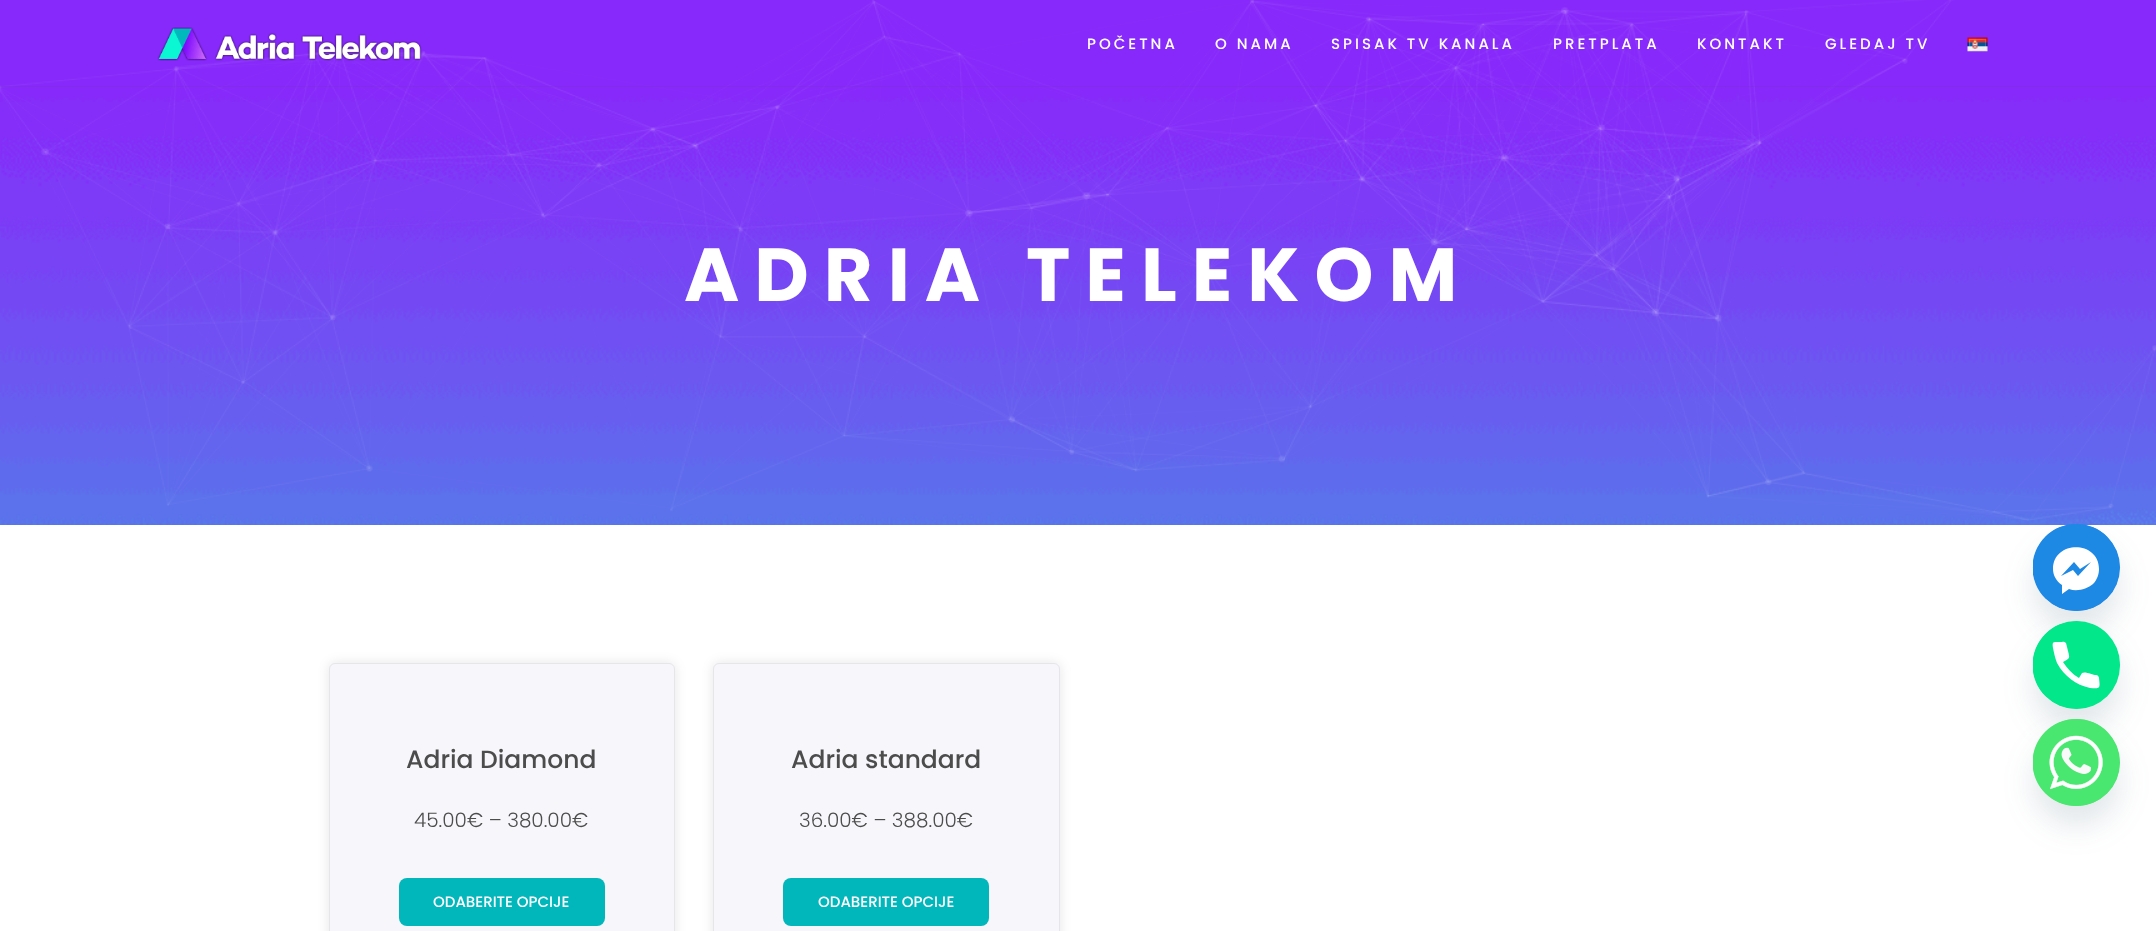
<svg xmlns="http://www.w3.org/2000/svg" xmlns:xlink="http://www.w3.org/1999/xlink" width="2156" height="931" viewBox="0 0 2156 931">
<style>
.cls-1{font:bold 75px Poppins;letter-spacing:15px;fill:#ffffff}
.cls-2{font:500 15px Poppins;letter-spacing:3px;fill:#ffffff}
.cls-3{font:500 25px Poppins;fill:#4c4c4c}
.cls-4{font:300 20px Poppins;fill:#4c4c4c}
.cls-5{font:500 15px Poppins;fill:#ffffff}
</style>
<defs>
<clipPath id="clip1"><rect x="2033" y="524" width="87" height="87"/></clipPath>
<clipPath id="clip2"><rect x="2033" y="621" width="87" height="88"/></clipPath>
</defs>
<rect width="100%" height="100%" fill="#ffffff"/>
<image xlink:href="image2.png" x="0" y="0" width="2156" height="525"/>
<rect fill="#000000" fill-opacity="0.1" filter="blur(6px)" x="329" y="663" width="346" height="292" rx="6"/>
<rect fill="#f7f6fb" stroke="#e6e5ea" x="329.5" y="663.5" width="345" height="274" rx="5.5"/>
<rect fill="#02b7bc" x="399" y="878" width="206" height="48" rx="8"/>
<rect fill="#000000" fill-opacity="0.1" filter="blur(6px)" x="713" y="663" width="347" height="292" rx="6"/>
<rect fill="#f7f6fb" stroke="#e6e5ea" x="713.5" y="663.5" width="346" height="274" rx="5.5"/>
<rect fill="#02b7bc" x="783" y="878" width="206" height="48" rx="8"/>
<text class="cls-1" x="684" y="301">ADRIA TELEKOM</text>
<image xlink:href="image3.png" x="0" y="0" width="2156" height="521"/>
<rect fill="#4c4c4c" fill-opacity="0.1" x="0" y="86" width="2156" height="1"/>
<image xlink:href="image1.png" x="1967" y="37" width="21" height="15"/>
<text class="cls-2" x="1825" y="49">GLEDAJ TV</text>
<text class="cls-2" x="1697" y="49">KONTAKT</text>
<text class="cls-2" x="1553" y="49">PRETPLATA</text>
<text class="cls-2" x="1331" y="49">SPISAK TV KANALA</text>
<text class="cls-2" x="1215" y="49">O NAMA</text>
<text class="cls-2" x="1087" y="49">POČETNA</text>
<image xlink:href="image0.png" x="157" y="27" width="265" height="34"/>
<text class="cls-3" x="406" y="768">Adria Diamond</text>
<text class="cls-4" x="414" y="827">45.00€ – 380.00€</text>
<text class="cls-5" x="433" y="907">ODABERITE OPCIJE</text>
<text class="cls-3" x="791" y="768">Adria standard</text>
<text class="cls-4" x="799" y="827">36.00€ – 388.00€</text>
<text class="cls-5" x="818" y="907">ODABERITE OPCIJE</text>
<rect fill="#49687e" fill-opacity="0.16" filter="blur(15px)" x="2033" y="544" width="87" height="87" rx="43.5"/>
<circle fill="#1e88e5" cx="2076.5" cy="567.5" r="43.5"/>
<g clip-path="url(#clip1)">
<circle fill="#1e88e5" cx="2076" cy="567.5" r="43.5"/>
</g>
<path fill="#ffffff" fill-rule="evenodd" d="M2053 569C2053 540 2099 540 2099 569C2099 574 2097 580 2093 584C2087 589 2077 592 2069 589L2062 594V585C2056 581 2053 575 2053 569ZM2073 570L2078 576L2091 562L2080 569L2074 562L2061 576Z"/>
<rect fill="#49687e" fill-opacity="0.16" filter="blur(15px)" x="2033" y="641" width="87" height="88" rx="43.5"/>
<rect fill="#03e78b" x="2033" y="621" width="87" height="88" rx="43.5"/>
<g clip-path="url(#clip2)">
<circle fill="#03e78b" cx="2076" cy="665" r="43.5"/>
</g>
<path fill="#ffffff" d="M2096 675C2093 675 2085 671 2082 673L2079 678C2072 674 2067 668 2063 662C2070 658 2070 659 2068 651L2066 643C2064 641 2062 642 2060 642C2053 642 2052 641 2053 648C2054 653 2055 658 2057 663C2064 676 2076 685 2090 688C2101 689 2100 688 2099 678C2099 677 2098 675 2096 675Z"/>
<rect fill="#49687e" fill-opacity="0.16" filter="blur(15px)" x="2033" y="739" width="87" height="87" rx="43.5"/>
<circle fill="#49e670" cx="2076.5" cy="762.5" r="43.5"/>
<image xlink:href="image4.png" x="2033" y="719" width="87" height="87"/>
</svg>
